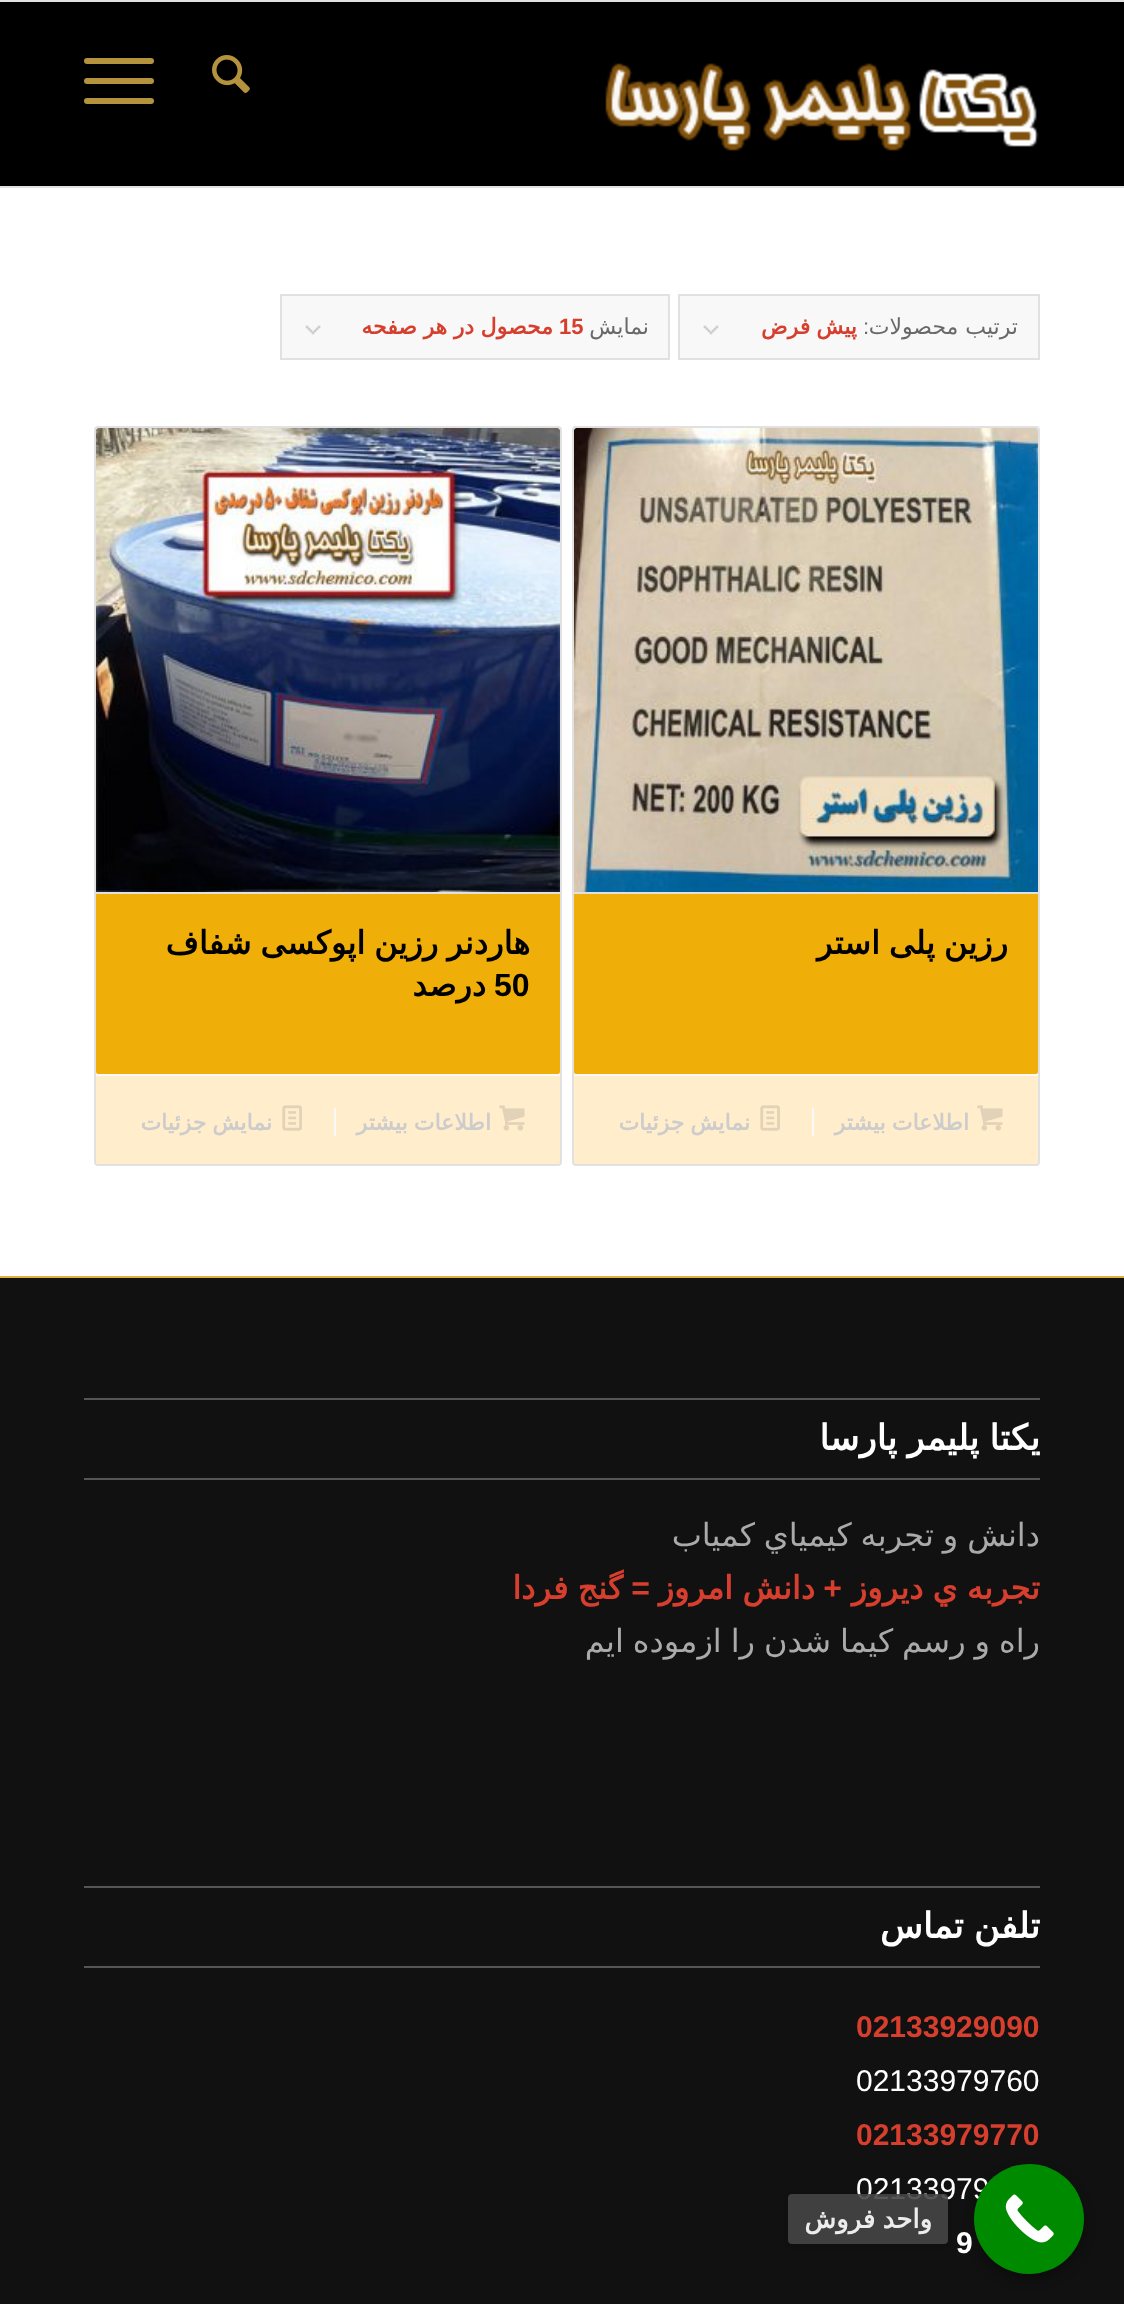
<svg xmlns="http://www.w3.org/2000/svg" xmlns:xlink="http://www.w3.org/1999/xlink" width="1124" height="2304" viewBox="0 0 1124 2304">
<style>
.cls-1{font:22px DejaVu Sans;direction:rtl;fill:#696969}
.cls-2{font:22px Liberation Sans;direction:rtl;fill:#696969}
.cls-3{font:bold 22px DejaVu Sans;direction:rtl;fill:#d63e2d}
.cls-4{font:bold 22px Liberation Sans;fill:#d63e2d}
.cls-5{font:bold 32px DejaVu Sans;direction:rtl;fill:#000000}
.cls-6{font:bold 22px DejaVu Sans;direction:rtl;fill:#cccccc}
.cls-7{font:bold 32px Liberation Sans;fill:#000000}
.cls-8{font:bold 35.25px DejaVu Sans;direction:rtl;fill:#ffffff}
.cls-9{font:32px DejaVu Sans;direction:rtl;fill:#aaaaaa}
.cls-10{font:bold 32px DejaVu Sans;direction:rtl;fill:#d63e2d}
.cls-11{font:bold 32px Liberation Sans;direction:rtl;fill:#d63e2d}
.cls-12{font:bold 30px Liberation Sans;fill:#d63e2d}
.cls-13{font:30px Liberation Sans;fill:#ffffff}
.cls-14{font:bold 30px Liberation Sans;fill:#ffffff}
.cls-15{font:bold 26px DejaVu Sans;direction:rtl;fill:#ececec}
</style>
<defs>
<clipPath id="clip1"><path d="M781 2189H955V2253H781ZM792 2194H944C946 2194 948 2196 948 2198V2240C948 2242 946 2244 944 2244H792C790 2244 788 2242 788 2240V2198C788 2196 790 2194 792 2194Z" clip-rule="evenodd"/></clipPath>
<clipPath id="clip2"><rect x="84" y="1368" width="956" height="328"/></clipPath>
</defs>
<rect width="100%" height="100%" fill="#ffffff"/>
<rect fill="#e1e1e1" x="0" y="0" width="1124" height="2"/>
<rect fill="#e1e1e1" x="0" y="186" width="1124" height="2"/>
<rect fill="#000000" x="0" y="2" width="1124" height="184"/>
<image xlink:href="image0.png" x="605" y="63" width="434" height="88"/>
<image xlink:href="image1.png" x="212" y="55" width="38" height="38"/>
<rect fill="#b5933e" x="84" y="78" width="70" height="6" rx="3"/>
<rect fill="#b5933e" x="84" y="58" width="70" height="6" rx="3"/>
<rect fill="#b5933e" x="84" y="98" width="70" height="6" rx="3"/>
<rect fill="#f8f8f8" x="680" y="296" width="358" height="62"/>
<image xlink:href="image2.png" x="703" y="325" width="16" height="10"/>
<rect fill="none" stroke="#e1e1e1" stroke-width="2" x="679" y="295" width="360" height="64"/>
<rect fill="#f8f8f8" x="282" y="296" width="386" height="62"/>
<image xlink:href="image2.png" x="305" y="325" width="16" height="10"/>
<rect fill="none" stroke="#e1e1e1" stroke-width="2" x="281" y="295" width="388" height="64"/>
<rect fill="none" stroke="#e1e1e1" stroke-width="2" x="573" y="427" width="466" height="738" rx="3"/>
<image xlink:href="image3.png" x="574" y="428" width="464" height="464"/>
<path fill="#f0ae08" d="M574 892H1038V1072C1038 1073 1037 1074 1036 1074H576C575 1074 574 1073 574 1072Z"/>
<rect fill="#e1e1e1" x="574" y="892" width="464" height="2"/>
<path fill="#ffa500" fill-opacity="0.2" d="M574 1074H1038V1162C1038 1163 1037 1164 1036 1164H576C575 1164 574 1163 574 1162Z"/>
<rect fill="#f9f9f9" x="574" y="1074" width="464" height="2"/>
<image xlink:href="image4.png" x="977" y="1105" width="26" height="26"/>
<rect fill="#f9f9f9" x="812" y="1108" width="2" height="28"/>
<image xlink:href="image5.png" x="760" y="1105" width="20" height="26"/>
<rect fill="none" stroke="#e1e1e1" stroke-width="2" x="95" y="427" width="466" height="738" rx="3"/>
<image xlink:href="image6.png" x="96" y="428" width="464" height="464"/>
<path fill="#f0ae08" d="M96 892H560V1072C560 1073 559 1074 558 1074H98C97 1074 96 1073 96 1072Z"/>
<rect fill="#e1e1e1" x="96" y="892" width="464" height="2"/>
<path fill="#ffa500" fill-opacity="0.2" d="M96 1074H560V1162C560 1163 559 1164 558 1164H98C97 1164 96 1163 96 1162Z"/>
<rect fill="#f9f9f9" x="96" y="1074" width="464" height="2"/>
<image xlink:href="image4.png" x="499" y="1105" width="26" height="26"/>
<rect fill="#f9f9f9" x="334" y="1108" width="2" height="28"/>
<image xlink:href="image5.png" x="282" y="1105" width="20" height="26"/>
<rect fill="#111111" x="0" y="1278" width="1124" height="1026"/>
<rect fill="#e0b13a" x="0" y="1276" width="1124" height="2"/>
<rect fill="#555555" x="84" y="1398" width="956" height="2"/>
<rect fill="#555555" x="84" y="1478" width="956" height="2"/>
<rect fill="#555555" x="84" y="1886" width="956" height="2"/>
<rect fill="#555555" x="84" y="1966" width="956" height="2"/>
<rect fill="#000000" fill-opacity="0.3" filter="blur(6px)" x="974" y="2170" width="110" height="110" rx="55"/>
<g clip-path="url(#clip1)">
<rect fill="#000000" fill-opacity="0.15" filter="blur(2px)" x="788" y="2196" width="160" height="50" rx="4"/>
</g>
<text class="cls-1" x="1018" y="334">ترتیب محصولات</text>
<text class="cls-2" x="869" y="334">:</text>
<text class="cls-3" x="857" y="334" word-spacing="-1">پیش فرض</text>
<text class="cls-1" x="649" y="334">نمایش</text>
<text class="cls-4" x="559" y="334">15</text>
<text class="cls-3" x="553" y="334" word-spacing="-0.5">محصول در هر صفحه</text>
<text class="cls-5" x="1008" y="954" word-spacing="-1.25">رزین پلی استر</text>
<text class="cls-6" x="969" y="1130" word-spacing="-1">اطلاعات بیشتر</text>
<text class="cls-6" x="750" y="1130" word-spacing="-1">نمایش جزئیات</text>
<text class="cls-5" x="530" y="954" word-spacing="-1.25">هاردنر رزین اپوکسی شفاف</text>
<text class="cls-7" x="494" y="996">50</text>
<text class="cls-5" x="486" y="996">درصد</text>
<text class="cls-6" x="491" y="1130" word-spacing="-1">اطلاعات بیشتر</text>
<text class="cls-6" x="272" y="1130" word-spacing="-1">نمایش جزئیات</text>
<g clip-path="url(#clip2)">
<text class="cls-8" x="1040" y="1450" word-spacing="-1">یکتا پلیمر پارسا</text>
<text class="cls-9" x="1040" y="1546" word-spacing="-1.25">دانش و تجربه كيمیاي كمياب</text>
</g>
<text class="cls-10" x="1040" y="1599" word-spacing="-1">تجربه ي ديروز</text>
<text class="cls-11" x="842" y="1599">+</text>
<text class="cls-10" x="815" y="1599" word-spacing="-1">دانش امروز</text>
<text class="cls-11" x="650" y="1599">=</text>
<text class="cls-10" x="623" y="1599" word-spacing="-1">گنج فردا</text>
<g clip-path="url(#clip2)">
<text class="cls-9" x="1040" y="1652" word-spacing="-1.25">راه و رسم كيما شدن را ازموده ايم</text>
</g>
<text class="cls-8" x="1040" y="1938" word-spacing="-1">تلفن تماس</text>
<text class="cls-12" x="856" y="2037">02133929090</text>
<text class="cls-13" x="856" y="2091">02133979760</text>
<text class="cls-12" x="856" y="2145">02133979770</text>
<text class="cls-13" x="856" y="2199">02133979</text>
<text class="cls-14" x="956" y="2253">9</text>
<circle fill="#008a00" cx="1029" cy="2219" r="55"/>
<image xlink:href="image7.png" x="1005" y="2194" width="49" height="49"/>
<rect fill="#464646" fill-opacity="0.9" x="788" y="2194" width="160" height="50" rx="4"/>
<text class="cls-15" x="932" y="2228" word-spacing="-1">واحد فروش</text>
</svg>
